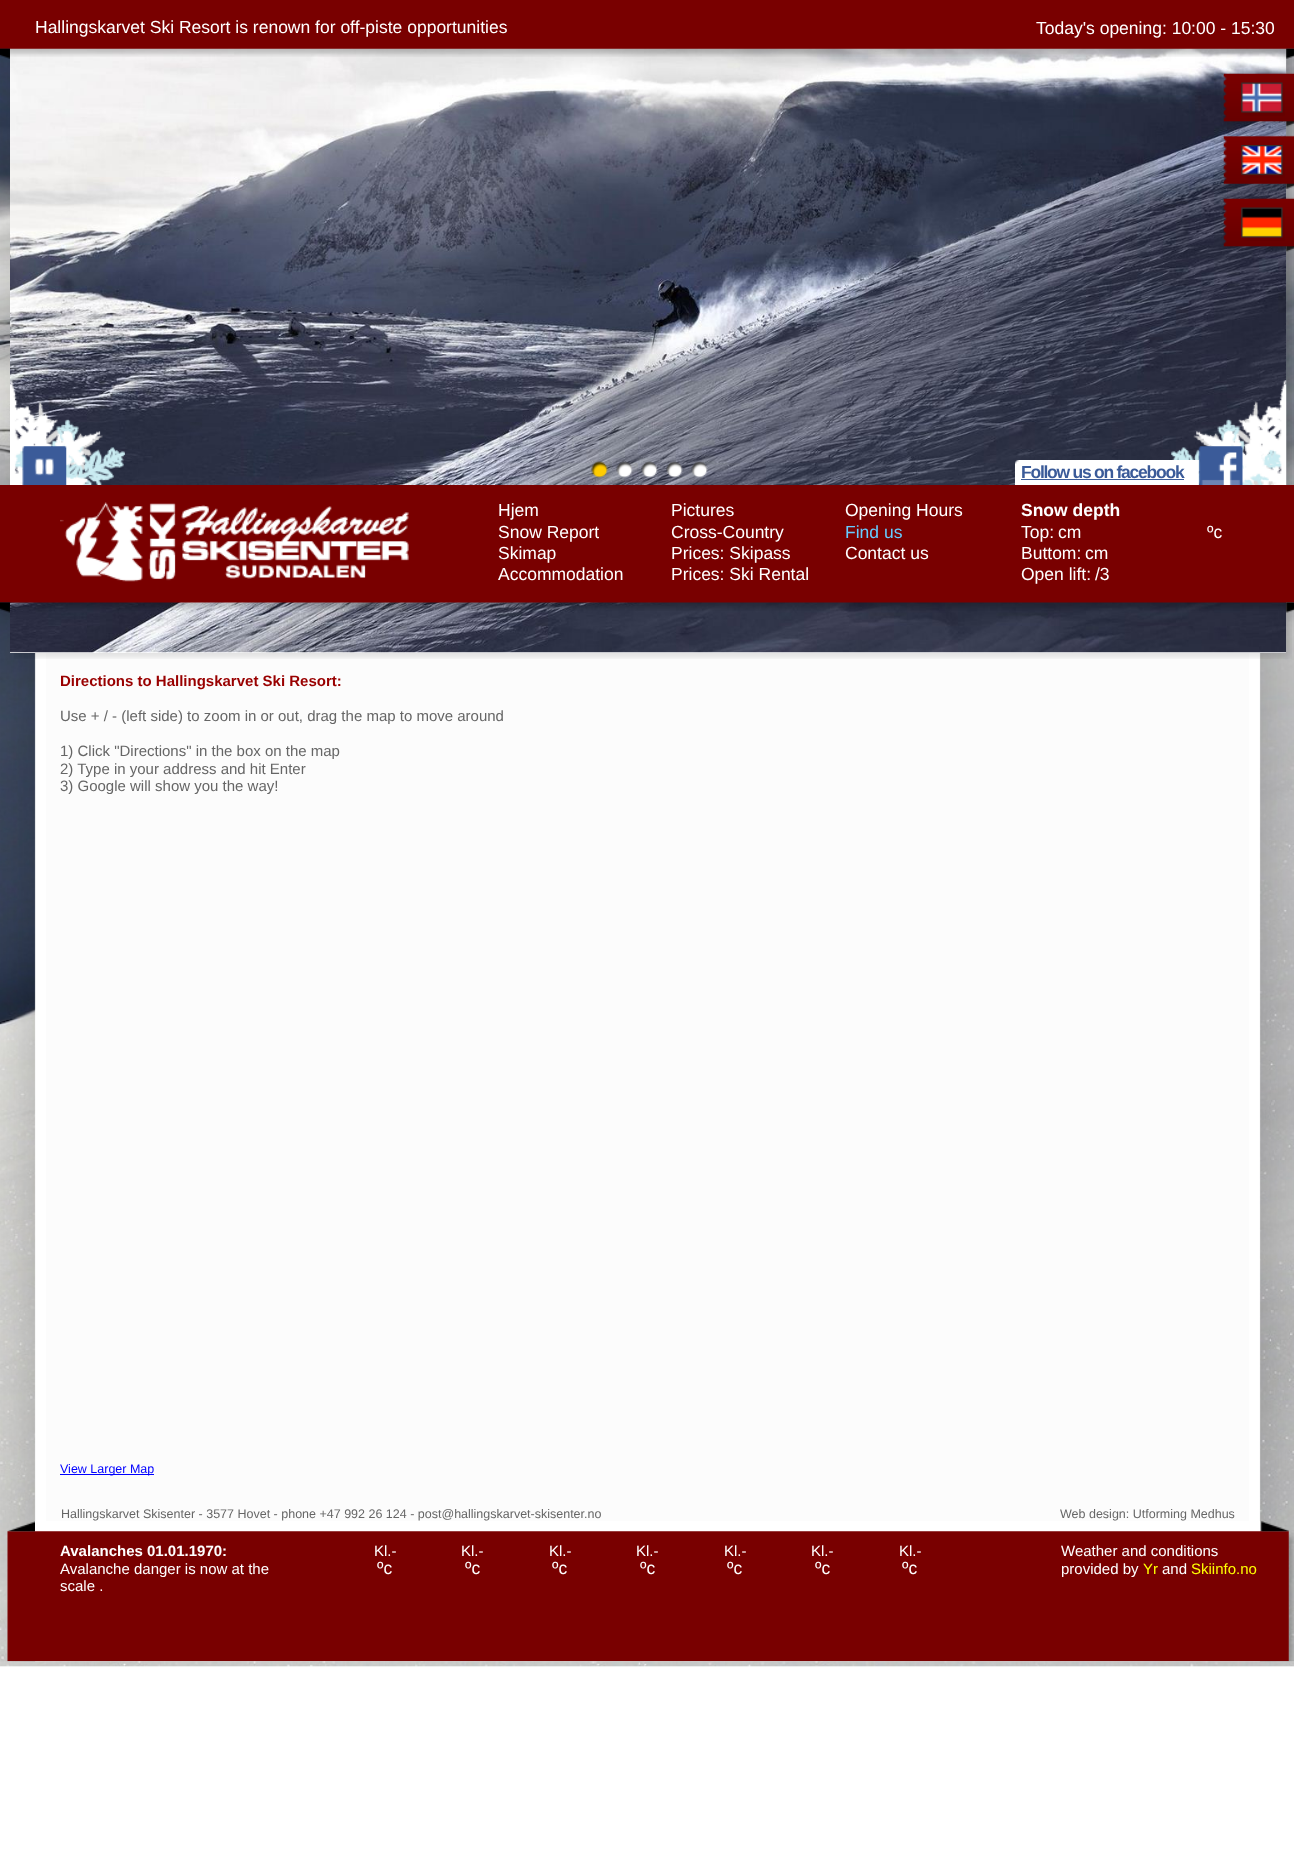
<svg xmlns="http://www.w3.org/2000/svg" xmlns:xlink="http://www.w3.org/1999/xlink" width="1294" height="1863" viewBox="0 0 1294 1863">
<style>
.cls-1{font:17.5px Liberation Sans;fill:#ffffff}
.cls-2{font:bold 17.5px Liberation Sans;letter-spacing:-1.25px;fill:#3b5b99}
.cls-3{font:17.5px Liberation Sans;fill:#66ccff}
.cls-4{font:bold 17.5px Liberation Sans;fill:#ffffff}
.cls-5{font:bold 15px Liberation Sans;fill:#990000}
.cls-6{font:15px Liberation Sans;fill:#666666}
.cls-7{font:12.5px Liberation Sans;fill:#0000ff}
.cls-8{font:12.5px Liberation Sans;fill:#666666}
.cls-9{font:bold 15px Liberation Sans;fill:#ffffff}
.cls-10{font:15px Liberation Sans;fill:#ffffff}
.cls-11{font:15px Liberation Sans;fill:#ffff00}
</style>
<rect width="100%" height="100%" fill="#ffffff"/>
<image xlink:href="image0.png" x="0" y="48" width="1294" height="1619"/>
<image xlink:href="image1.png" x="0" y="48" width="1294" height="1614"/>
<image xlink:href="image2.png" x="14" y="48" width="1278" height="611"/>
<rect fill="#ffffff" x="10" y="652" width="1276" height="1"/>
<image xlink:href="image3.png" x="10" y="48" width="1277" height="605"/>
<image xlink:href="image10.png" x="10" y="380" width="115" height="105"/>
<image xlink:href="image4.png" x="22" y="446" width="45" height="39"/>
<image xlink:href="image5.png" x="591" y="461" width="17" height="17"/>
<image xlink:href="image6.png" x="616" y="461" width="17" height="17"/>
<image xlink:href="image7.png" x="641" y="461" width="17" height="17"/>
<image xlink:href="image8.png" x="666" y="461" width="17" height="17"/>
<image xlink:href="image9.png" x="691" y="461" width="17" height="17"/>
<image xlink:href="image11.png" x="1171" y="380" width="116" height="105"/>
<image xlink:href="image12.png" x="0" y="0" width="1294" height="57"/>
<image xlink:href="image13.png" x="0" y="48" width="10" height="11"/>
<image xlink:href="image14.png" x="1286" y="48" width="8" height="11"/>
<image xlink:href="image15.png" x="1223" y="72" width="71" height="55"/>
<image xlink:href="image16.png" x="1241" y="82" width="44" height="34"/>
<image xlink:href="image17.png" x="1223" y="135" width="71" height="54"/>
<image xlink:href="image18.png" x="1241" y="145" width="44" height="33"/>
<image xlink:href="image19.png" x="1223" y="197" width="71" height="55"/>
<image xlink:href="image20.png" x="1241" y="207" width="44" height="34"/>
<image xlink:href="image21.png" x="0" y="485" width="1294" height="126"/>
<image xlink:href="image23.png" x="1198" y="446" width="45" height="39"/>
<image xlink:href="image22.png" x="1015" y="460" width="184" height="25"/>
<rect fill="#3b5b99" x="1021" y="479" width="163" height="1"/>
<image xlink:href="image24.png" x="60" y="502" width="349" height="80"/>
<image xlink:href="image25.png" x="0" y="602" width="10" height="11"/>
<image xlink:href="image26.png" x="1286" y="602" width="8" height="11"/>
<rect fill="#0000ff" x="60" y="1474" width="94" height="1"/>
<rect fill="#ffffff" x="35" y="1521" width="1225" height="11"/>
<image xlink:href="image27.png" x="7" y="1531" width="1287" height="131"/>
<image xlink:href="image28.png" x="7" y="1521" width="28" height="11"/>
<image xlink:href="image29.png" x="1261" y="1521" width="28" height="11"/>
<text class="cls-1" x="35" y="33">Hallingskarvet Ski Resort is renown for off-piste opportunities</text>
<text class="cls-1" x="1036" y="34">Today's opening: 10:00 - 15:30</text>
<text class="cls-2" x="1021" y="478">Follow us on facebook</text>
<text class="cls-1"><tspan x="498" y="516">Hjem</tspan><tspan x="498" y="538">Snow Report</tspan><tspan x="498" y="559">Skimap</tspan><tspan x="498" y="580">Accommodation</tspan></text>
<text class="cls-1"><tspan x="671" y="516">Pictures</tspan><tspan x="671" y="538">Cross-Country</tspan><tspan x="671" y="559">Prices: Skipass</tspan><tspan x="671" y="580">Prices: Ski Rental</tspan></text>
<text class="cls-1" x="845" y="516">Opening Hours</text>
<text class="cls-3" x="845" y="538">Find us</text>
<text class="cls-1" x="845" y="559">Contact us</text>
<text class="cls-4" x="1021" y="516">Snow depth</text>
<text class="cls-1" x="1021" y="538">Top:</text>
<text class="cls-1" x="1058" y="538">cm</text>
<text class="cls-1" x="1021" y="559">Buttom:</text>
<text class="cls-1" x="1085" y="559">cm</text>
<text class="cls-1" x="1021" y="580">Open lift:</text>
<text class="cls-1" x="1095" y="580">/3</text>
<text class="cls-1" x="1207" y="538">ºc</text>
<text class="cls-5" x="60" y="686">Directions to Hallingskarvet Ski Resort:</text>
<text class="cls-6" x="60" y="721">Use + / - (left side) to zoom in or out, drag the map to move around</text>
<text class="cls-6"><tspan x="60" y="756">1) Click "Directions" in the box on the map</tspan><tspan x="60" y="774">2) Type in your address and hit Enter</tspan><tspan x="60" y="791">3) Google will show you the way!</tspan></text>
<text class="cls-7" x="60" y="1473">View Larger Map</text>
<text class="cls-8" x="61" y="1518">Hallingskarvet Skisenter - 3577 Hovet - phone +47 992 26 124 - post@hallingskarvet-skisenter.no</text>
<text class="cls-8" x="1060" y="1518">Web design: Utforming Medhus</text>
<text class="cls-9" x="60" y="1556">Avalanches 01.01.1970:</text>
<text class="cls-10"><tspan x="60" y="1574">Avalanche danger is now at the</tspan><tspan x="60" y="1591">scale .</tspan></text>
<text class="cls-10" x="374" y="1556">Kl.-</text>
<text class="cls-1" x="377" y="1574">ºc</text>
<text class="cls-10" x="461" y="1556">Kl.-</text>
<text class="cls-1" x="465" y="1574">ºc</text>
<text class="cls-10" x="549" y="1556">Kl.-</text>
<text class="cls-1" x="552" y="1574">ºc</text>
<text class="cls-10" x="636" y="1556">Kl.-</text>
<text class="cls-1" x="640" y="1574">ºc</text>
<text class="cls-10" x="724" y="1556">Kl.-</text>
<text class="cls-1" x="727" y="1574">ºc</text>
<text class="cls-10" x="811" y="1556">Kl.-</text>
<text class="cls-1" x="815" y="1574">ºc</text>
<text class="cls-10" x="899" y="1556">Kl.-</text>
<text class="cls-1" x="902" y="1574">ºc</text>
<text class="cls-10"><tspan x="1061" y="1556">Weather and conditions</tspan><tspan x="1061" y="1574">provided by</tspan></text>
<text class="cls-11" x="1143" y="1574">Yr</text>
<text class="cls-10" x="1162" y="1574">and</text>
<text class="cls-11" x="1191" y="1574">Skiinfo.no</text>
</svg>
